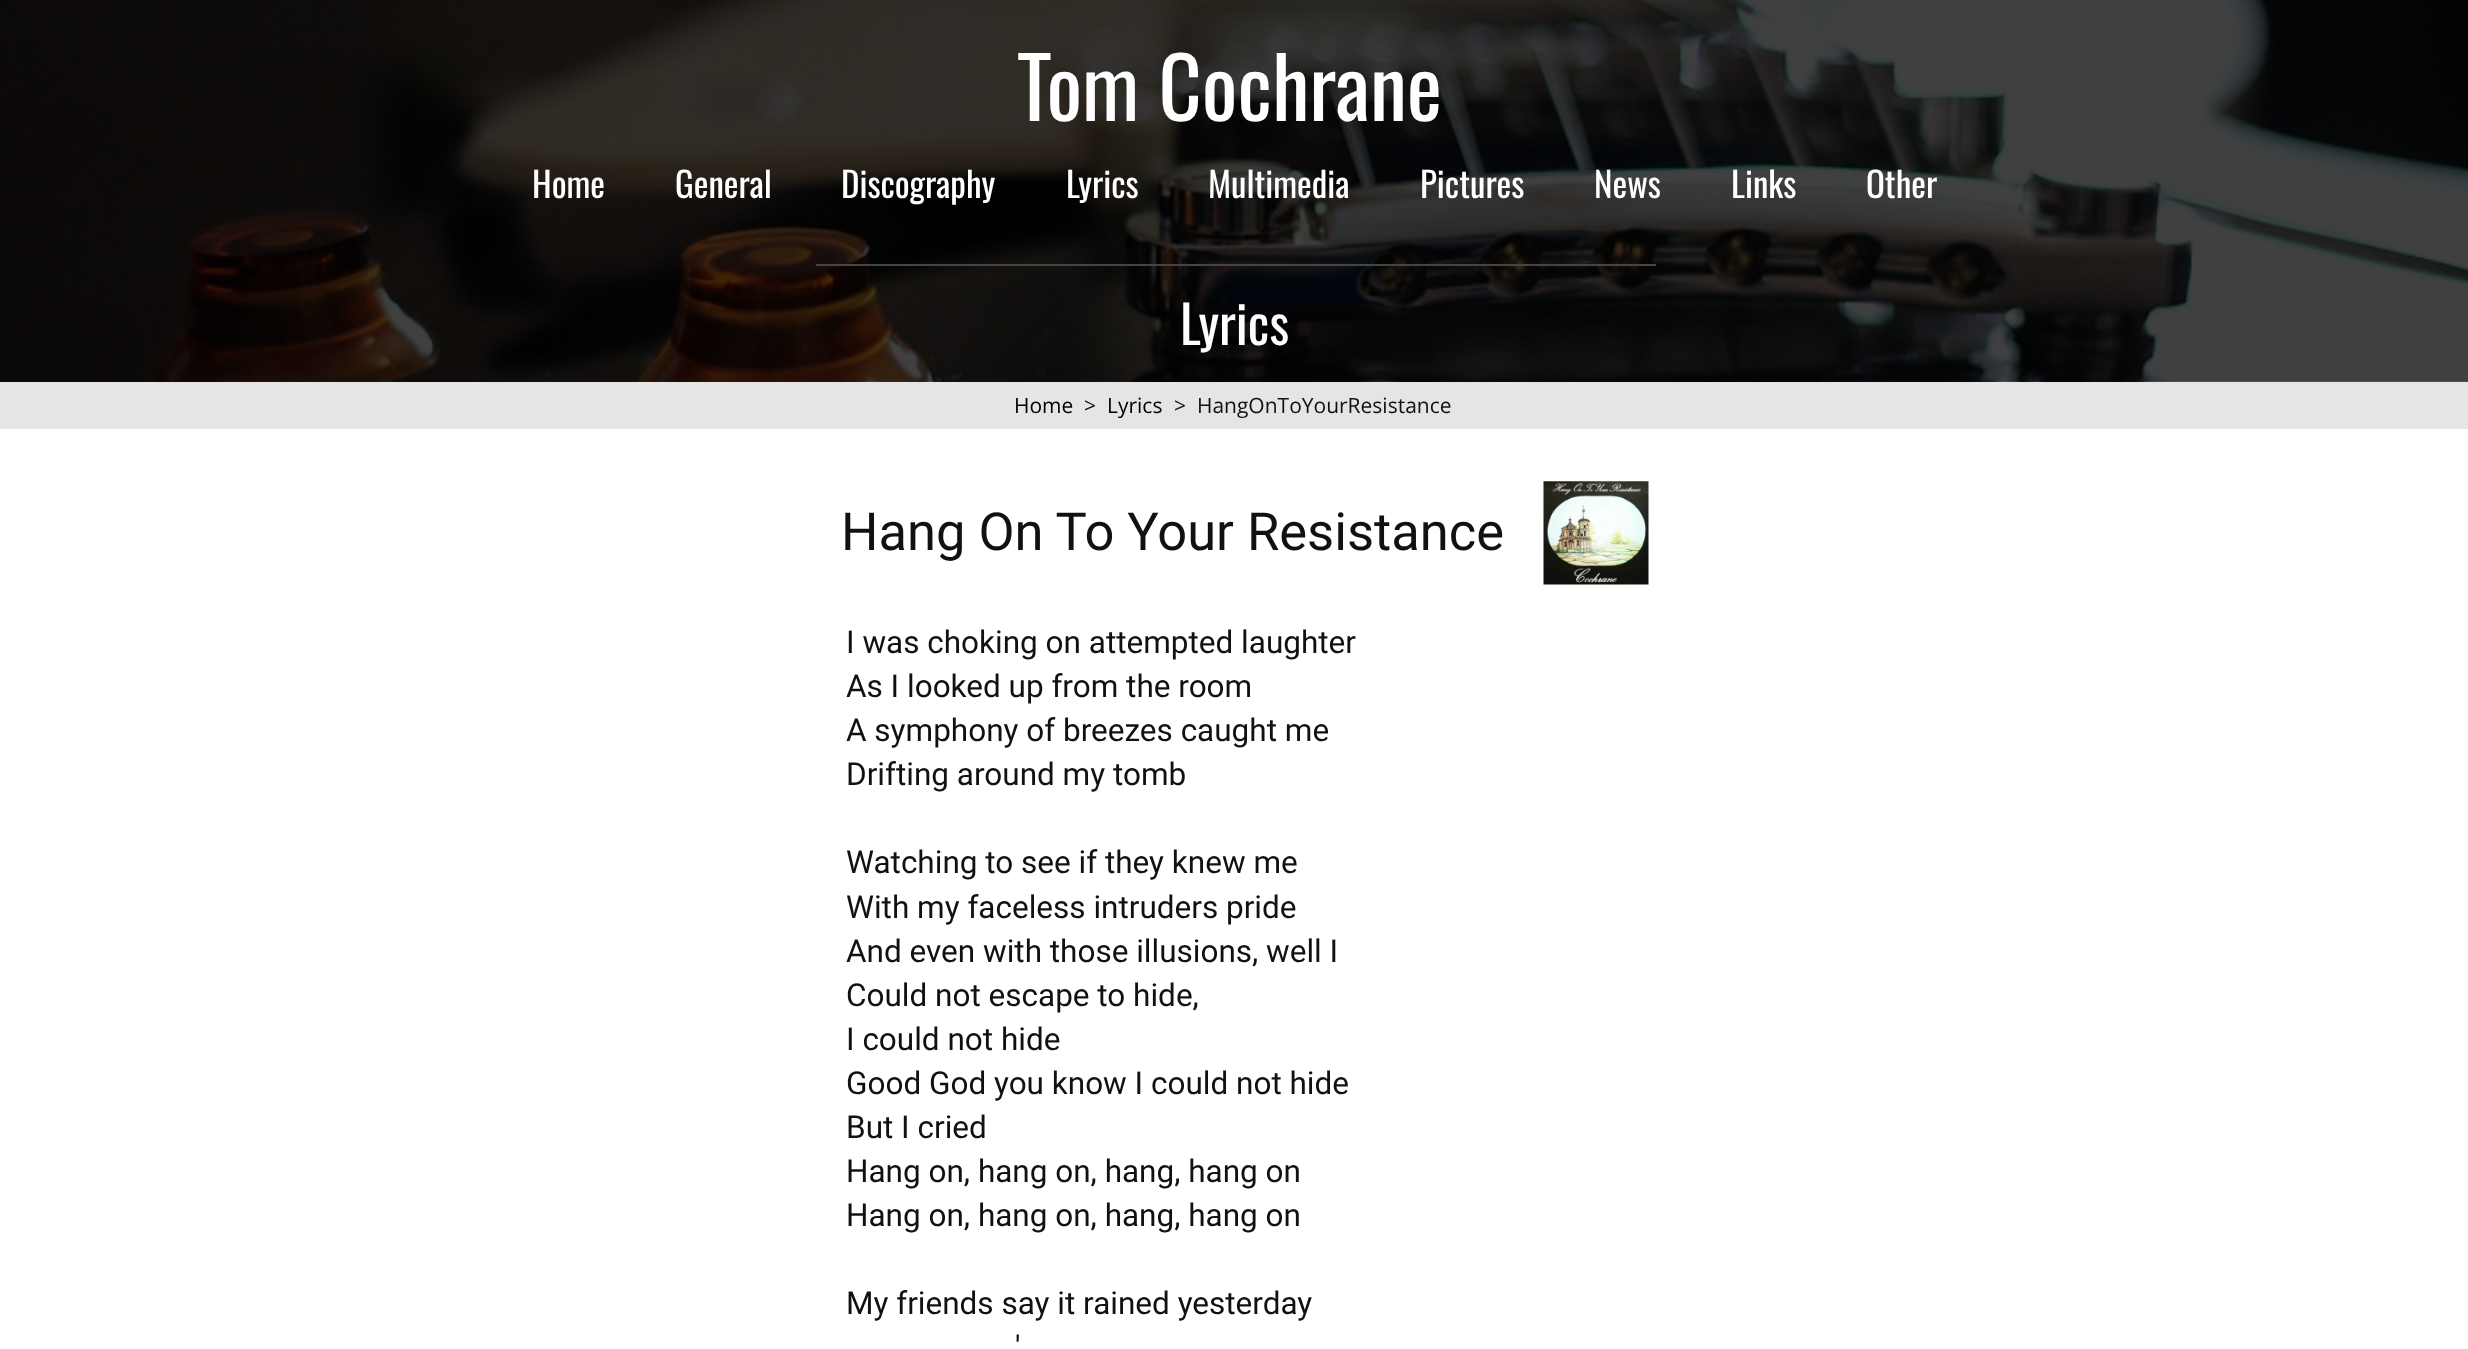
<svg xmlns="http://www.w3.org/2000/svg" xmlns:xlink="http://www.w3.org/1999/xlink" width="2468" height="1349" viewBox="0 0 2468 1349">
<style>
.cls-1{font:84px Oswald;fill:#ffffff}
.cls-2{font:35px Oswald;fill:#ffffff}
.cls-3{font:52.5px Oswald;fill:#ffffff}
.cls-4{font:21px Open Sans;fill:#000000}
.cls-5{font:21px Open Sans;fill:#111111}
.cls-6{font:52.5px Roboto;fill:#111111}
.cls-7{font:31.5px Roboto;fill:#111111}
</style>
<rect width="100%" height="100%" fill="#000000"/>
<image xlink:href="image0.png" x="0" y="0" width="2468" height="382"/>
<rect fill="#454545" x="816" y="264" width="840" height="2"/>
<rect fill="#e5e5e5" x="0" y="382" width="2468" height="47"/>
<rect fill="#ffffff" x="0" y="429" width="2468" height="920"/>
<image xlink:href="image1.png" x="1543" y="481" width="106" height="104"/>
<text class="cls-1" x="1017" y="121">Tom Cochrane</text>
<text class="cls-2" x="532" y="198">Home</text>
<text class="cls-2" x="675" y="198">General</text>
<text class="cls-2" x="841" y="198">Discography</text>
<text class="cls-2" x="1066" y="198">Lyrics</text>
<text class="cls-2" x="1208" y="198">Multimedia</text>
<text class="cls-2" x="1420" y="198">Pictures</text>
<text class="cls-2" x="1594" y="198">News</text>
<text class="cls-2" x="1731" y="198">Links</text>
<text class="cls-2" x="1866" y="198">Other</text>
<text class="cls-3" x="1180" y="345">Lyrics</text>
<text class="cls-4" x="1014" y="413">Home</text>
<text class="cls-5" x="1084" y="413">&gt;</text>
<text class="cls-4" x="1107" y="413">Lyrics</text>
<text class="cls-5" xml:space="preserve" x="1174" y="413">&gt;  HangOnToYourResistance</text>
<text class="cls-6" x="841" y="550">Hang On To Your Resistance</text>
<text class="cls-7"><tspan x="846" y="653">I was choking on attempted laughter</tspan><tspan x="846" y="697">As I looked up from the room</tspan><tspan x="846" y="741">A symphony of breezes caught me</tspan><tspan x="846" y="785">Drifting around my tomb</tspan></text>
<text class="cls-7"><tspan x="846" y="873">Watching to see if they knew me</tspan><tspan x="846" y="918">With my faceless intruders pride</tspan><tspan x="846" y="962">And even with those illusions, well I</tspan><tspan x="846" y="1006">Could not escape to hide,</tspan><tspan x="846" y="1050">I could not hide</tspan><tspan x="846" y="1094">Good God you know I could not hide</tspan><tspan x="846" y="1138">But I cried</tspan><tspan x="846" y="1182">Hang on, hang on, hang, hang on</tspan><tspan x="846" y="1226">Hang on, hang on, hang, hang on</tspan></text>
<text class="cls-7" x="846" y="1314">My friends say it rained yesterday</text>
<text class="cls-7" x="1015" y="1358">'</text>
</svg>
